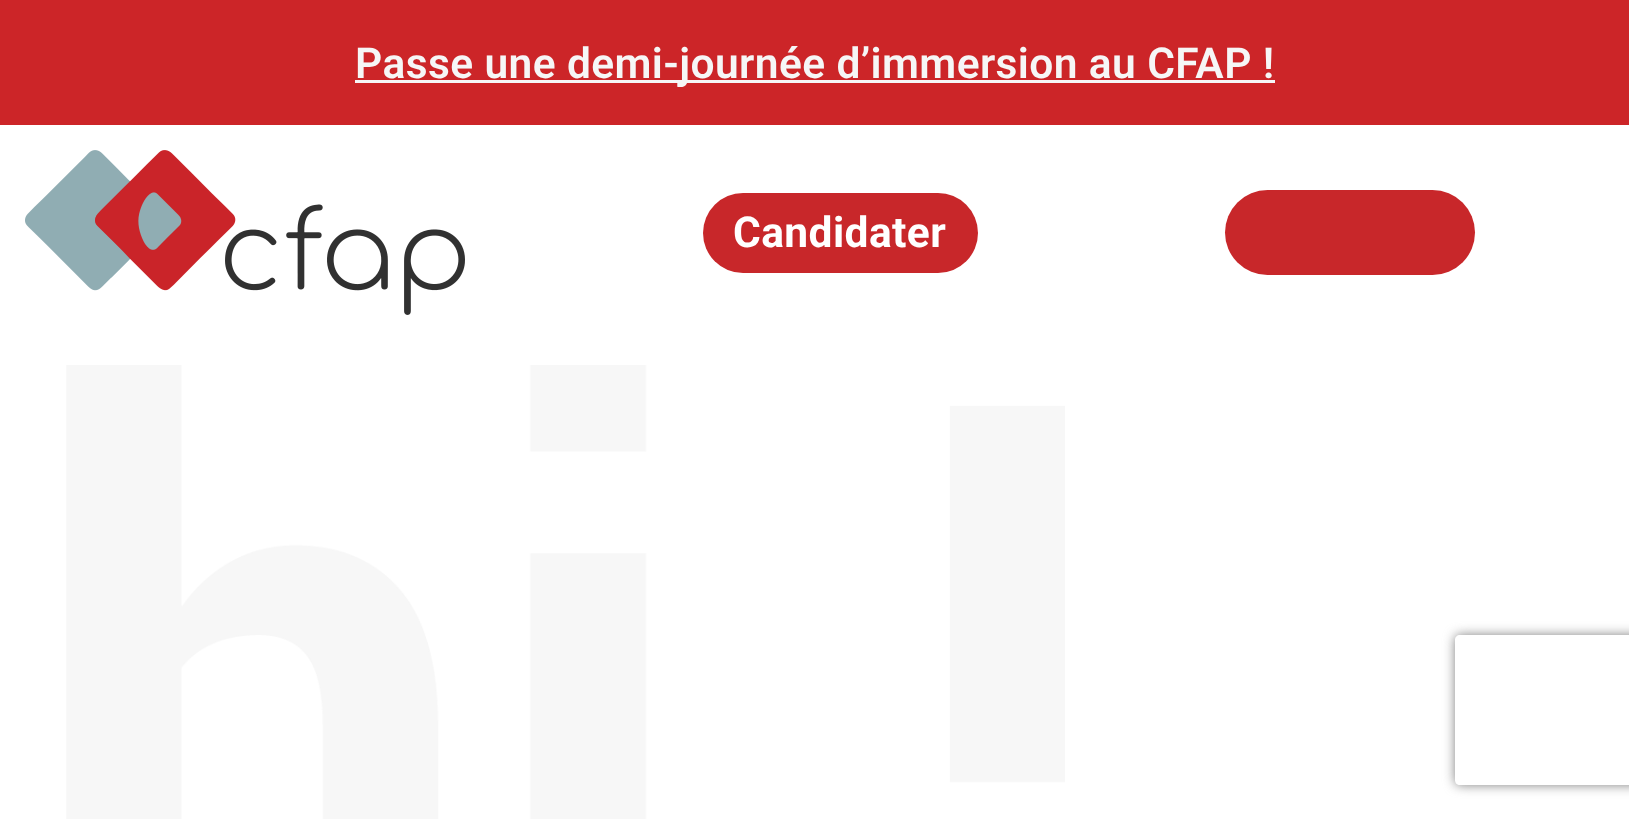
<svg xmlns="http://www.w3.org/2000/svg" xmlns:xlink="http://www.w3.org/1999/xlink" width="1629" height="819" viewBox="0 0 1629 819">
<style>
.cls-1{font:600 42.5px Roboto;letter-spacing:0.4px;fill:#f6f6f6}
.cls-2{font:bold 42.5px Roboto;letter-spacing:0.4px;fill:#ffffff}
</style>
<defs>
<clipPath id="clip1"><path d="M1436 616H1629V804H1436ZM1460 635H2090C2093 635 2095 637 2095 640V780C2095 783 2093 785 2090 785H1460C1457 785 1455 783 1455 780V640C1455 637 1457 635 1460 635Z" clip-rule="evenodd"/></clipPath>
</defs>
<rect width="100%" height="100%" fill="#ffffff"/>
<rect fill="#cc2528" x="0" y="0" width="1629" height="125"/>
<rect fill="#f6f6f6" x="355" y="80" width="920" height="3"/>
<image xlink:href="image0.png" x="25" y="150" width="440" height="165"/>
<rect fill="#c8272a" x="703" y="193" width="275" height="80" rx="40"/>
<rect fill="#c8272a" x="1225" y="190" width="250" height="85" rx="42.5"/>
<image xlink:href="image1.png" x="66" y="365" width="999" height="454"/>
<g clip-path="url(#clip1)">
<rect fill="#808080" filter="blur(6px)" x="1455" y="635" width="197" height="150" rx="5"/>
</g>
<text class="cls-1" x="355" y="78">Passe une demi-journée d’immersion au CFAP !</text>
<text class="cls-2" x="733" y="247">Candidater</text>
</svg>
